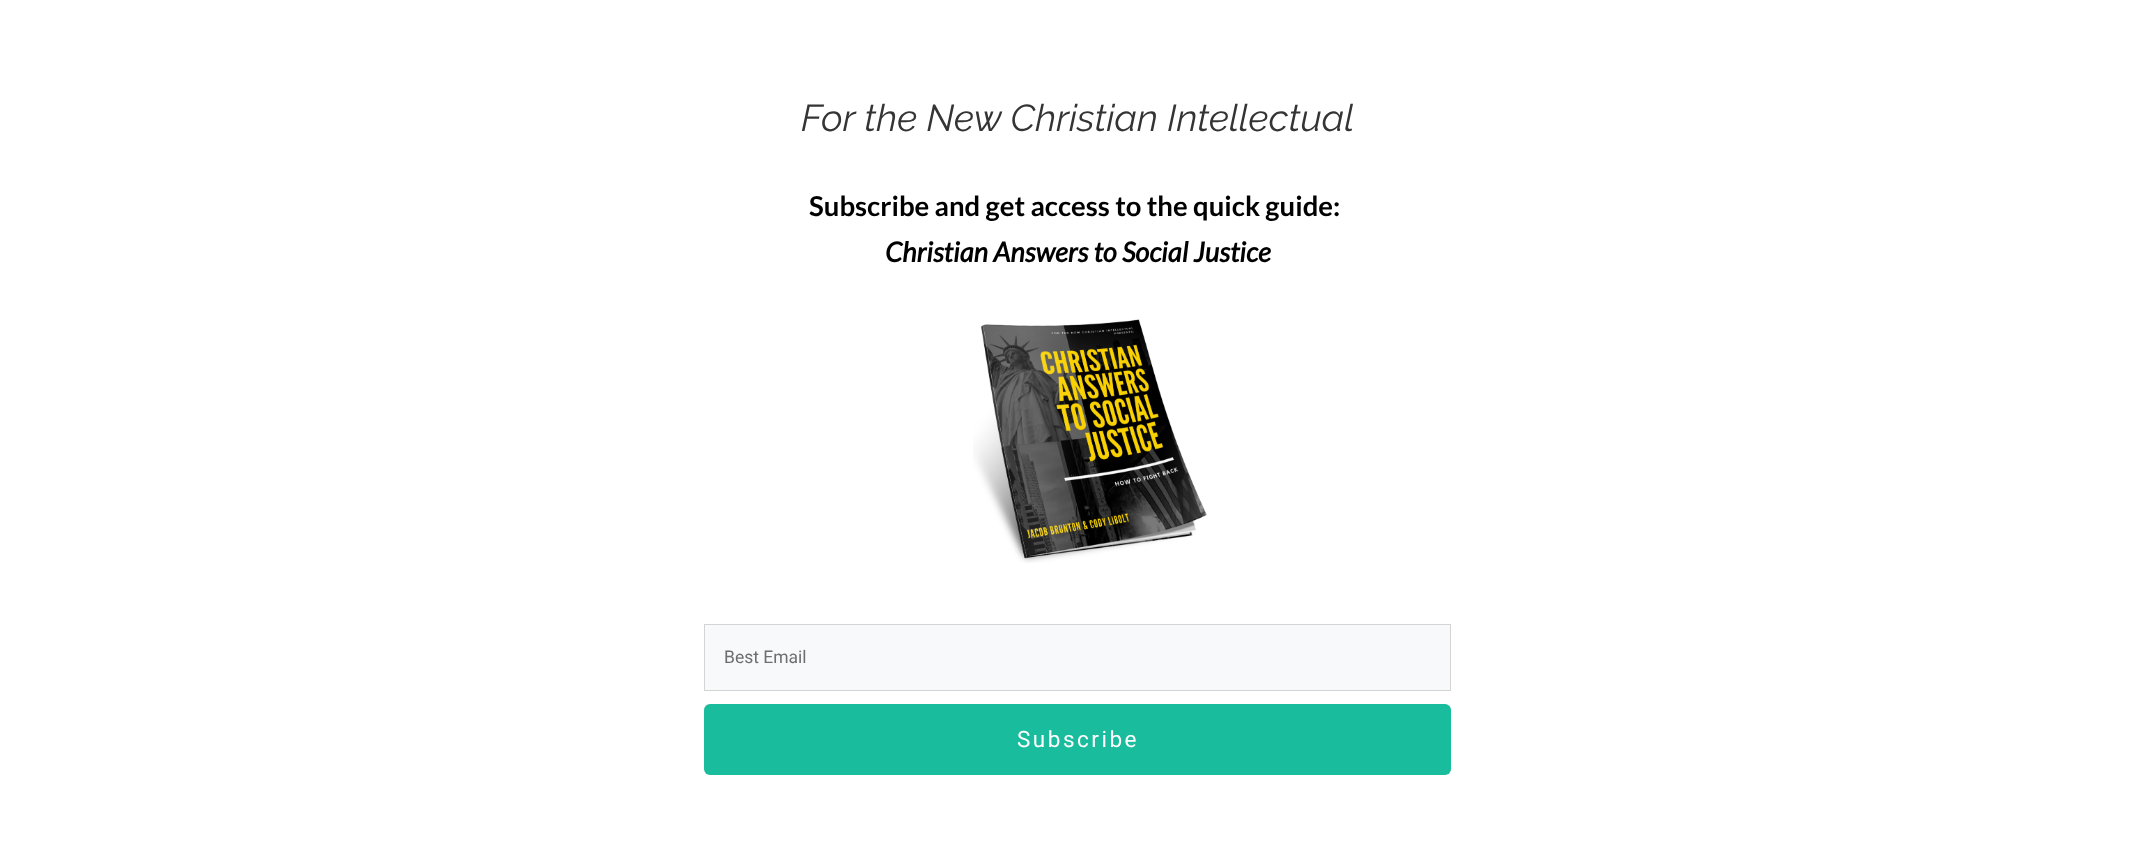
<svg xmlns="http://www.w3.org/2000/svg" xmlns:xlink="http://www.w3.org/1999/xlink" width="2156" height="866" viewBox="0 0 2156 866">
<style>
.cls-1{font:italic 100 37.5px Raleway;fill:#343434}
.cls-2{font:bold 27.5px Lato;fill:#000000}
.cls-3{font:italic bold 27.5px Lato;fill:#000000}
.cls-4{font:17.5px Roboto;fill:#6d6e6e}
.cls-5{font:22.5px Roboto;letter-spacing:2.5px;fill:#ffffff}
</style>
<rect width="100%" height="100%" fill="#ffffff"/>
<image xlink:href="image0.png" x="973" y="319" width="234" height="244"/>
<rect fill="#f8f9fa" stroke="#d3d4d4" x="704.5" y="624.5" width="746" height="66"/>
<rect fill="#19bc9c" x="704" y="704" width="747" height="71" rx="6"/>
<text class="cls-1" x="801" y="131">For the New Christian Intellectual</text>
<text class="cls-2" x="809" y="216">Subscribe and get access to the quick guide:</text>
<text class="cls-3" x="885" y="262">Christian Answers to Social Justice</text>
<text class="cls-4" x="724" y="663">Best Email</text>
<text class="cls-5" x="1017" y="747">Subscribe</text>
</svg>
